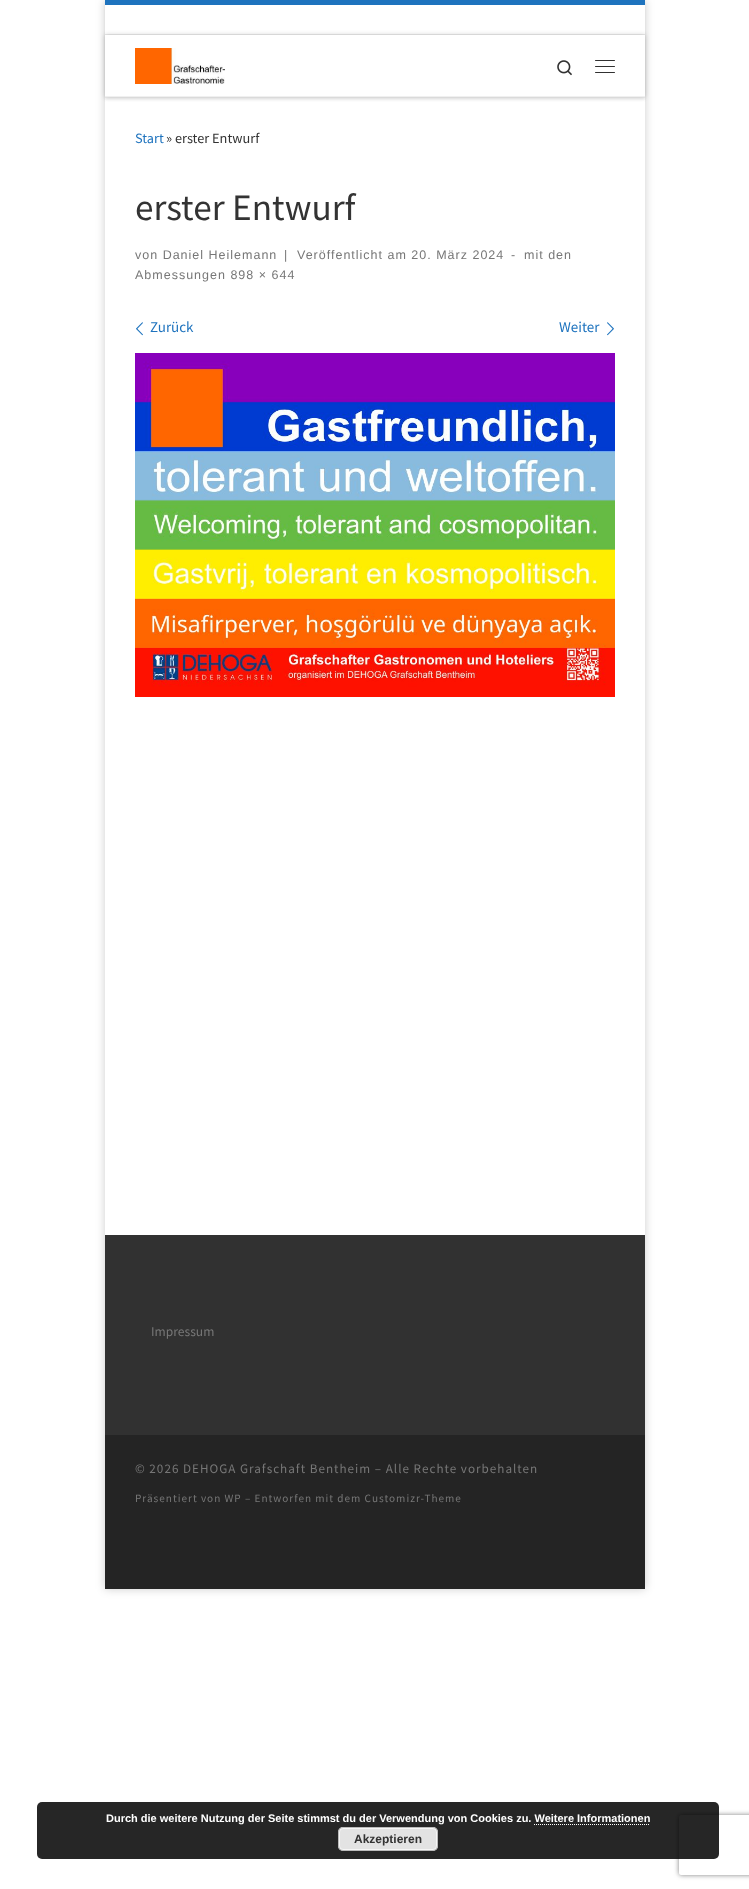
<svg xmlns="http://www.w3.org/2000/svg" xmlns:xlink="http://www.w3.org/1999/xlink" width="749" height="1889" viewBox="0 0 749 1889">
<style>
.cls-1{font:14.25px Source Sans Pro;fill:#1e73be}
.cls-2{font:14.25px Source Sans Pro;fill:#333333}
.cls-3{font:37.25px Source Sans Pro;fill:#333333}
.cls-4{font:12.5px Liberation Sans;letter-spacing:1px;fill:#777777}
.cls-5{font:15px Source Sans Pro;fill:#1e73be}
.cls-6{font:13.5px Source Sans Pro;fill:#777777}
.cls-7{font:13.1px Source Sans Pro;letter-spacing:1px;fill:#777777}
.cls-8{font:11.2px Source Sans Pro;letter-spacing:1px;fill:#777777}
.cls-9{font:bold 11px Liberation Sans;fill:#ffffff}
.cls-10{font:bold 12px Liberation Sans;fill:#333333}
</style>
<defs>
<clipPath id="clip1"><path d="M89 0H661V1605H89ZM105 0H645V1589H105Z" clip-rule="evenodd"/></clipPath>
<clipPath id="clip2"><path d="M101 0H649V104H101ZM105 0H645V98H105Z" clip-rule="evenodd"/></clipPath>
<clipPath id="clip3"><path d="M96 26H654V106H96ZM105 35H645V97H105Z" clip-rule="evenodd"/></clipPath>
<clipPath id="clip4"><path d="M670 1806H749V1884H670ZM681 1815H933C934 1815 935 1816 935 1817V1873C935 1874 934 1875 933 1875H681C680 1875 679 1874 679 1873V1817C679 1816 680 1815 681 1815Z" clip-rule="evenodd"/></clipPath>
</defs>
<rect width="100%" height="100%" fill="#ffffff"/>
<g clip-path="url(#clip1)">
<rect fill="#000000" fill-opacity="0.2" filter="blur(5px)" x="105" y="0" width="540" height="1589"/>
</g>
<g clip-path="url(#clip2)">
<rect fill="#666666" fill-opacity="0.08" filter="blur(1px)" x="105" y="2" width="540" height="98"/>
</g>
<rect fill="#1e73be" x="105" y="0" width="540" height="5"/>
<rect fill="#efefef" x="105" y="97" width="540" height="1"/>
<rect fill="#ececec" x="105" y="34" width="540" height="1"/>
<g clip-path="url(#clip3)">
<rect fill="#000000" fill-opacity="0.2" filter="blur(2.5px)" x="105" y="35" width="540" height="62"/>
</g>
<image xlink:href="image0.png" x="135" y="48" width="90" height="36"/>
<image xlink:href="image1.png" x="557" y="60" width="15" height="16"/>
<rect fill="#313131" x="595" y="60" width="20" height="1" rx="0.5"/>
<rect fill="#313131" x="595" y="66" width="20" height="1" rx="0.5"/>
<rect fill="#313131" x="595" y="72" width="20" height="1" rx="0.5"/>
<rect fill="#f0f0f0" x="105" y="96" width="540" height="1"/>
<image xlink:href="image2.png" x="136" y="322" width="7" height="14"/>
<image xlink:href="image3.png" x="607" y="322" width="7" height="14"/>
<image xlink:href="image4.png" x="135" y="353" width="480" height="344"/>
<rect fill="#313131" x="105" y="1235" width="540" height="200"/>
<rect fill="#242424" x="105" y="1435" width="540" height="154"/>
<g clip-path="url(#clip4)">
<rect fill="#808080" filter="blur(2.5px)" x="679" y="1815" width="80" height="60" rx="2"/>
</g>
<rect fill="#000000" fill-opacity="0.85" x="37" y="1802" width="682" height="57" rx="5"/>
<path fill="none" stroke="#ffffff" stroke-dasharray="1 1" d="M534 1824.5H650"/>
<rect fill="#e3e3e3" x="338" y="1827" width="100" height="24" rx="5"/>
<rect fill="none" stroke="#f6f6f6" x="339.5" y="1828.5" width="97" height="21" rx="3.5"/>
<rect fill="none" stroke="#bbbbbb" x="338.5" y="1827.5" width="99" height="23" rx="4.5"/>
<text class="cls-1" x="135" y="143">Start</text>
<text class="cls-2" x="166" y="143">» erster Entwurf</text>
<text class="cls-3" x="135" y="220">erster Entwurf</text>
<text class="cls-4" x="135" y="259">von Daniel Heilemann</text>
<text class="cls-4" x="284" y="259">|</text>
<text class="cls-4" x="297" y="259">Veröffentlicht am 20. März 2024</text>
<text class="cls-4" x="511" y="259">-</text>
<text class="cls-4" x="524" y="259">mit den</text>
<text class="cls-4" x="135" y="279">Abmessungen 898 × 644</text>
<text class="cls-5" x="150" y="332">Zurück</text>
<text class="cls-5" x="559" y="332">Weiter</text>
<text class="cls-6" x="151" y="1336">Impressum</text>
<text class="cls-7" x="135" y="1473">© 2026 DEHOGA Grafschaft Bentheim – Alle Rechte vorbehalten</text>
<text class="cls-8" x="135" y="1502">Präsentiert von WP – Entworfen mit dem Customizr-Theme</text>
<text class="cls-9" x="106" y="1822">Durch die weitere Nutzung der Seite stimmst du der Verwendung von Cookies zu. Weitere Informationen</text>
<text class="cls-10" x="354" y="1843">Akzeptieren</text>
</svg>
